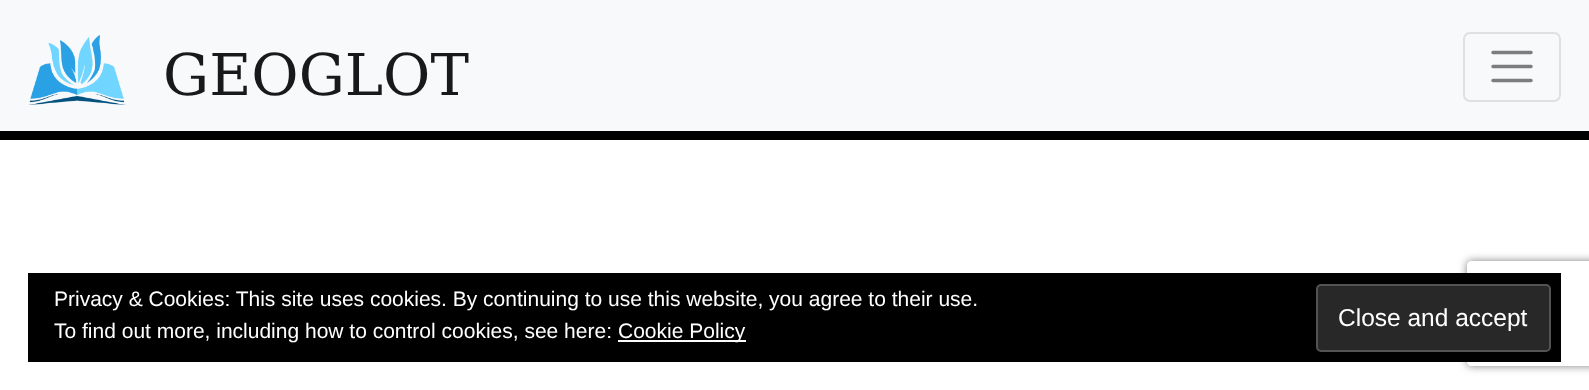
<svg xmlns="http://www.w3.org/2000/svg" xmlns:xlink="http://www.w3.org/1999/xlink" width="1589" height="390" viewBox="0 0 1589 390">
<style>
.cls-1{font:57.75px DejaVu Serif;fill:#191919}
.cls-2{font:21px Liberation Sans;fill:#ffffff}
.cls-3{font:24.5px Liberation Sans;fill:#ffffff}
</style>
<defs>
<clipPath id="clip1"><path d="M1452 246H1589V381H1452ZM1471 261H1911C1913 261 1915 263 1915 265V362C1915 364 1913 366 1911 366H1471C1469 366 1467 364 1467 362V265C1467 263 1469 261 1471 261Z" clip-rule="evenodd"/></clipPath>
</defs>
<rect width="100%" height="100%" fill="#ffffff"/>
<rect fill="#f8f9fa" x="0" y="0" width="1589" height="131"/>
<rect fill="#000000" x="0" y="131" width="1589" height="9"/>
<image xlink:href="image0.png" x="28" y="35" width="98" height="70"/>
<rect fill="none" stroke="#dfe0e1" stroke-width="2" x="1464" y="33" width="96" height="68" rx="6"/>
<path fill="none" stroke="#7c7d7d" stroke-width="3.5" stroke-linecap="round" d="M1493 52.5H1531M1493 66.5H1531M1493 80.5H1531"/>
<g clip-path="url(#clip1)">
<rect fill="#808080" filter="blur(4.5px)" x="1467" y="261" width="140" height="105" rx="4"/>
</g>
<rect fill="#000000" x="28" y="273" width="1533" height="89"/>
<rect fill="#ffffff" x="618" y="340" width="128" height="2"/>
<rect fill="#282828" stroke="#535353" stroke-width="2" x="1317" y="285" width="233" height="66" rx="4"/>
<text class="cls-1" x="163" y="95">GEOGLOT</text>
<text class="cls-2"><tspan x="54" y="306">Privacy &amp; Cookies: This site uses cookies. By continuing to use this website, you agree to their use.</tspan><tspan x="54" y="338">To find out more, including how to control cookies, see here:</tspan></text>
<text class="cls-2" x="618" y="338">Cookie Policy</text>
<text class="cls-3" x="1338" y="326">Close and accept</text>
</svg>
